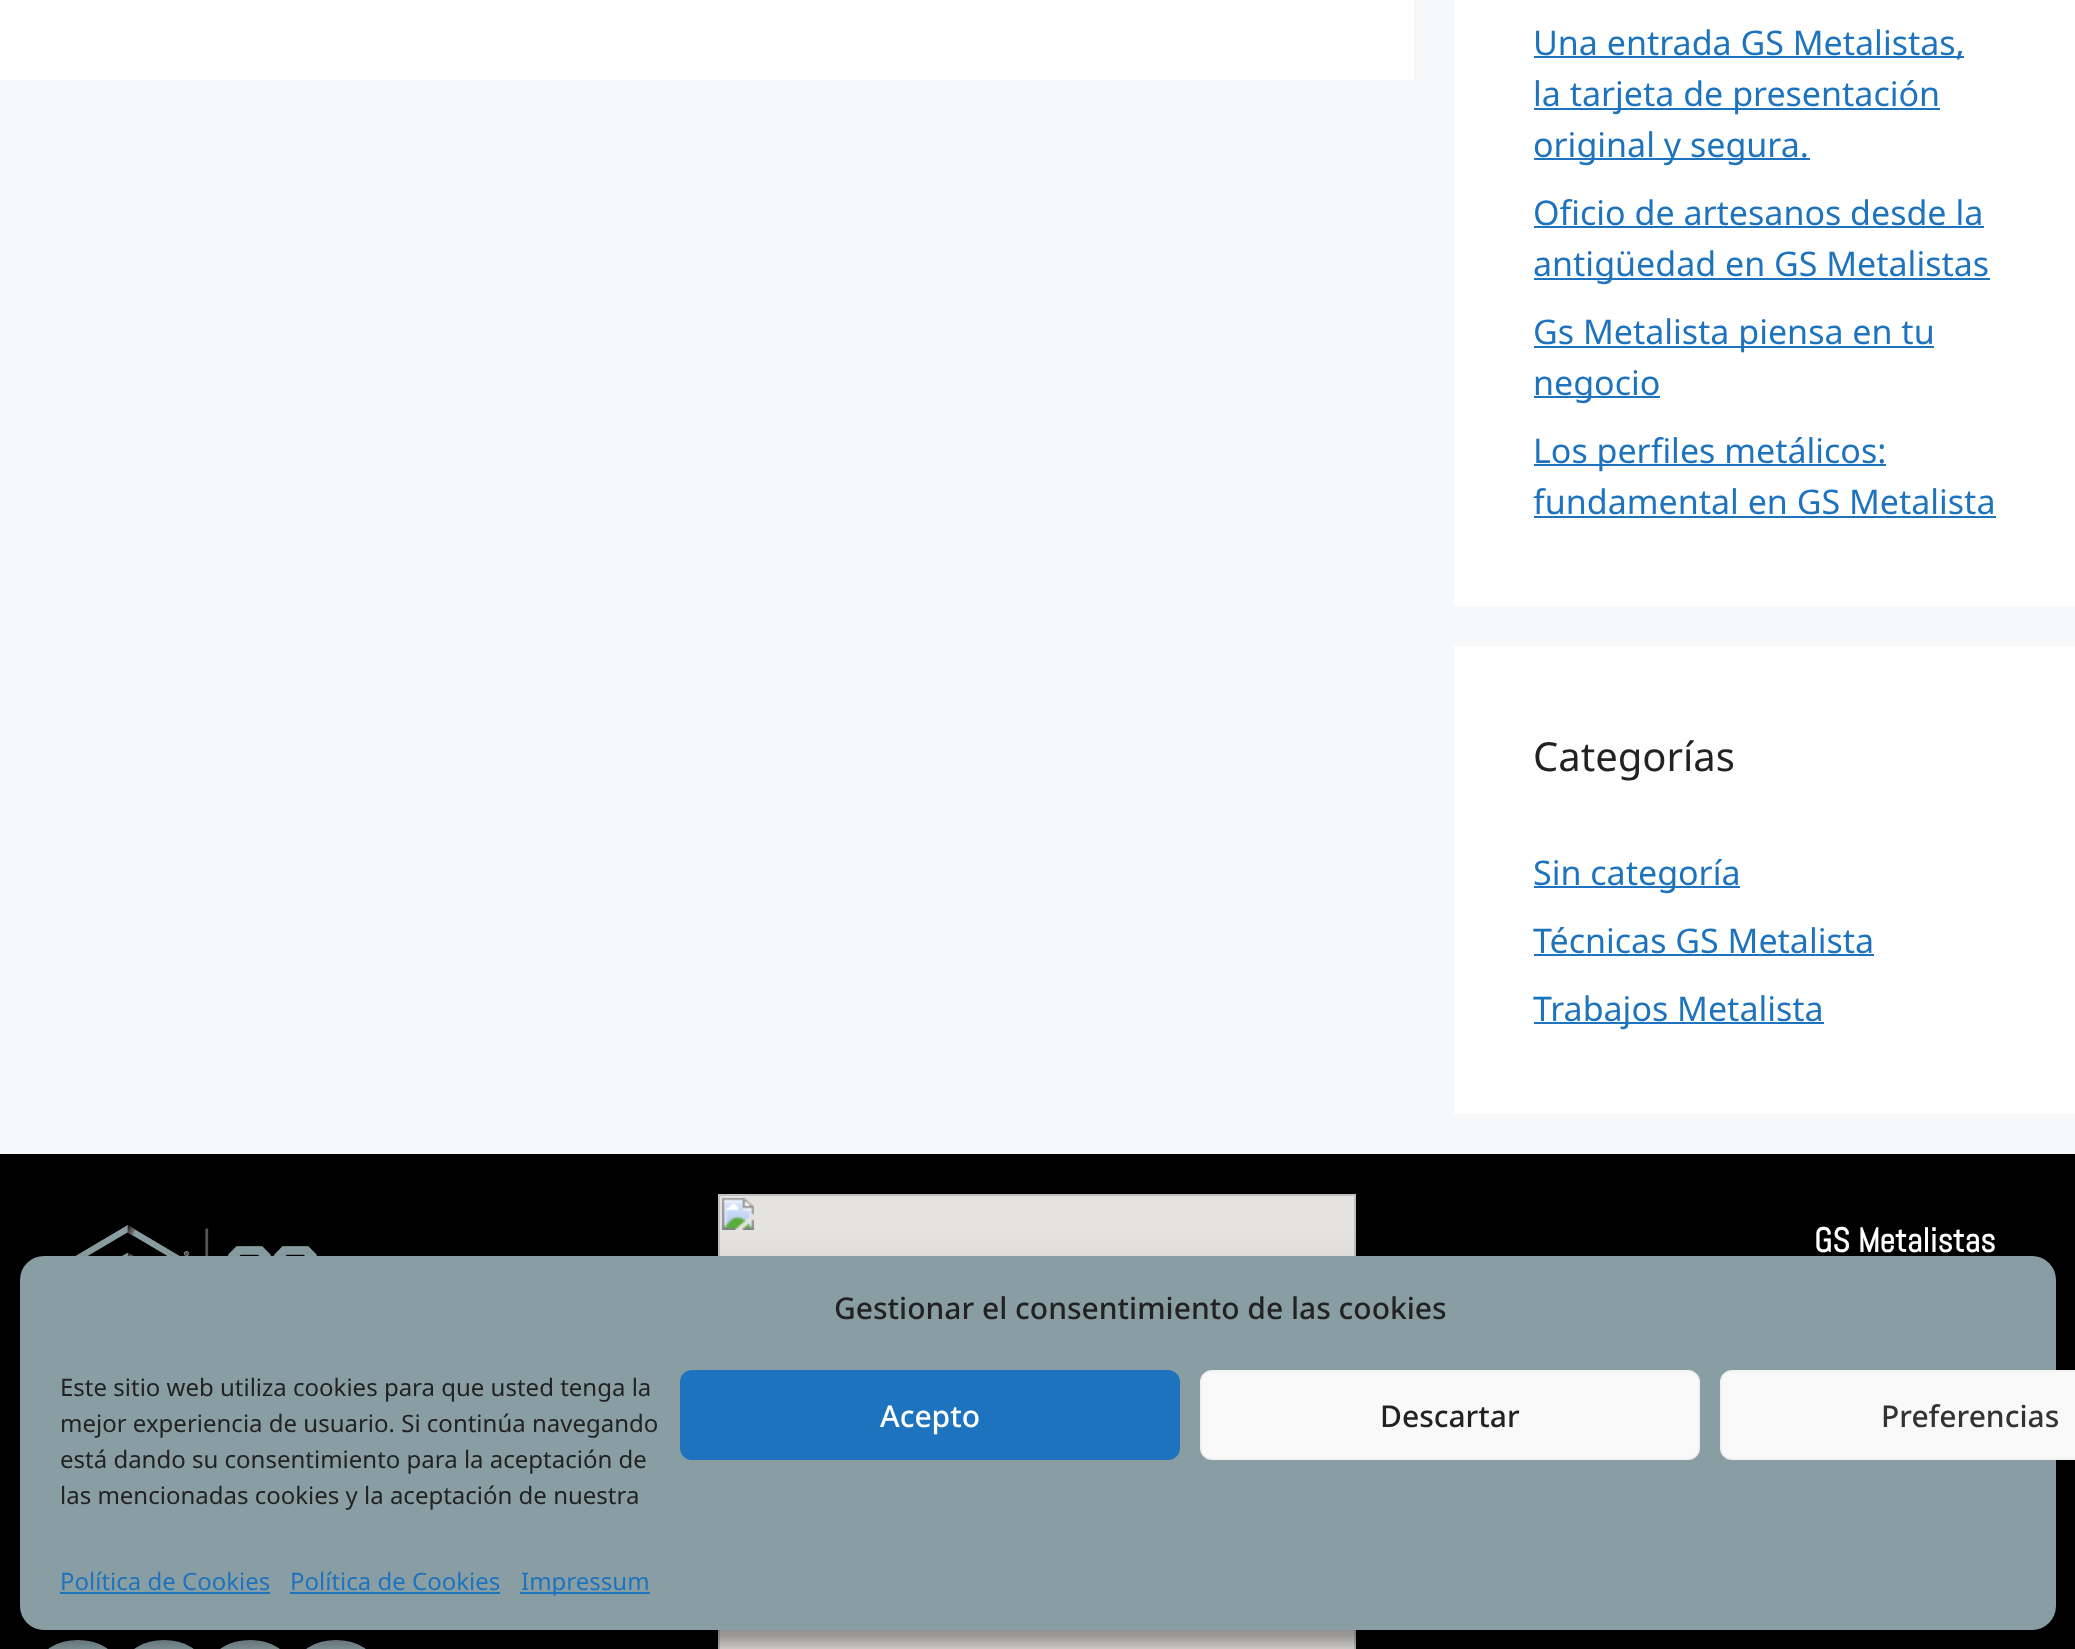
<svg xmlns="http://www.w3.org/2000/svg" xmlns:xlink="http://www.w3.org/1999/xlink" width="2075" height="1649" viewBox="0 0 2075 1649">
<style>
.cls-1{font:34px Noto Sans;fill:#1e73be}
.cls-2{font:40px Noto Sans;fill:#222222}
.cls-3{font:bold 34px Abel;fill:#ffffff}
.cls-4{font:500 30px Noto Sans;fill:#222222}
.cls-5{font:24px Noto Sans;fill:#222222}
.cls-6{font:500 30px Noto Sans;fill:#ffffff}
.cls-7{font:500 30px Noto Sans;fill:#333333}
.cls-8{font:24px Noto Sans;fill:#1e73be}
</style>
<rect width="100%" height="100%" fill="#f7f8f9"/>
<rect fill="#ffffff" x="0" y="0" width="1414" height="80"/>
<rect fill="#ffffff" x="1454" y="0" width="621" height="606"/>
<rect fill="#1e73be" x="1534" y="56" width="430" height="2"/>
<rect fill="#1e73be" x="1534" y="108" width="406" height="2"/>
<rect fill="#1e73be" x="1534" y="158" width="276" height="2"/>
<rect fill="#1e73be" x="1534" y="226" width="450" height="2"/>
<rect fill="#1e73be" x="1534" y="278" width="456" height="2"/>
<rect fill="#1e73be" x="1534" y="346" width="400" height="2"/>
<rect fill="#1e73be" x="1534" y="396" width="126" height="2"/>
<rect fill="#1e73be" x="1534" y="464" width="352" height="2"/>
<rect fill="#1e73be" x="1534" y="516" width="462" height="2"/>
<rect fill="#ffffff" x="1454" y="646" width="621" height="468"/>
<rect fill="#1e73be" x="1534" y="886" width="206" height="2"/>
<rect fill="#1e73be" x="1534" y="954" width="340" height="2"/>
<rect fill="#1e73be" x="1534" y="1022" width="290" height="2"/>
<rect fill="#000000" x="0" y="1154" width="2075" height="495"/>
<image xlink:href="image0.png" x="75" y="1225" width="242" height="31"/>
<rect fill="#899ea3" x="40" y="1640" width="76" height="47" rx="38"/>
<rect fill="#899ea3" x="126" y="1640" width="76" height="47" rx="38"/>
<rect fill="#899ea3" x="212" y="1640" width="76" height="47" rx="38"/>
<rect fill="#899ea3" x="298" y="1640" width="76" height="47" rx="38"/>
<image xlink:href="image1.png" x="718" y="1194" width="638" height="455"/>
<rect fill="#000000" fill-opacity="0.23" filter="blur(6px)" x="20" y="1268" width="2036" height="374" rx="24"/>
<rect fill="#000000" fill-opacity="0.19" filter="blur(20px)" x="20" y="1276" width="2036" height="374" rx="24"/>
<rect fill="#899ea3" x="20" y="1256" width="2036" height="374" rx="24"/>
<rect fill="#1e73be" stroke="#1e73be" stroke-width="2" x="681" y="1371" width="498" height="88" rx="11"/>
<rect fill="#f9f9f9" stroke="#f2f2f2" stroke-width="2" x="1201" y="1371" width="498" height="88" rx="11"/>
<rect fill="#f9f9f9" stroke="#f2f2f2" stroke-width="2" x="1721" y="1371" width="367" height="88" rx="11"/>
<rect fill="#1e73be" x="60" y="1592" width="210" height="2"/>
<rect fill="#1e73be" x="290" y="1592" width="210" height="2"/>
<rect fill="#1e73be" x="520" y="1592" width="130" height="2"/>
<text class="cls-1"><tspan x="1533" y="55">Una entrada GS Metalistas,</tspan><tspan x="1533" y="106">la tarjeta de presentación</tspan><tspan x="1533" y="157">original y segura.</tspan></text>
<text class="cls-1"><tspan x="1533" y="225">Oficio de artesanos desde la</tspan><tspan x="1533" y="276">antigüedad en GS Metalistas</tspan></text>
<text class="cls-1"><tspan x="1533" y="344">Gs Metalista piensa en tu</tspan><tspan x="1533" y="395">negocio</tspan></text>
<text class="cls-1"><tspan x="1533" y="463">Los perfiles metálicos:</tspan><tspan x="1533" y="514">fundamental en GS Metalista</tspan></text>
<text class="cls-2" x="1533" y="771">Categorías</text>
<text class="cls-1" x="1533" y="885">Sin categoría</text>
<text class="cls-1" x="1533" y="953">Técnicas GS Metalista</text>
<text class="cls-1" x="1533" y="1021">Trabajos Metalista</text>
<text class="cls-3" x="1814" y="1252">GS Metalistas</text>
<text class="cls-4" x="834" y="1319">Gestionar el consentimiento de las cookies</text>
<text class="cls-5"><tspan x="60" y="1396">Este sitio web utiliza cookies para que usted tenga la</tspan><tspan x="60" y="1432">mejor experiencia de usuario. Si continúa navegando</tspan><tspan x="60" y="1468">está dando su consentimiento para la aceptación de</tspan><tspan x="60" y="1504">las mencionadas cookies y la aceptación de nuestra</tspan></text>
<text class="cls-6" x="880" y="1427">Acepto</text>
<text class="cls-4" x="1380" y="1427">Descartar</text>
<text class="cls-7" x="1881" y="1427">Preferencias</text>
<text class="cls-8" x="60" y="1590">Política de Cookies</text>
<text class="cls-8" x="290" y="1590">Política de Cookies</text>
<text class="cls-8" x="521" y="1590">Impressum</text>
</svg>
